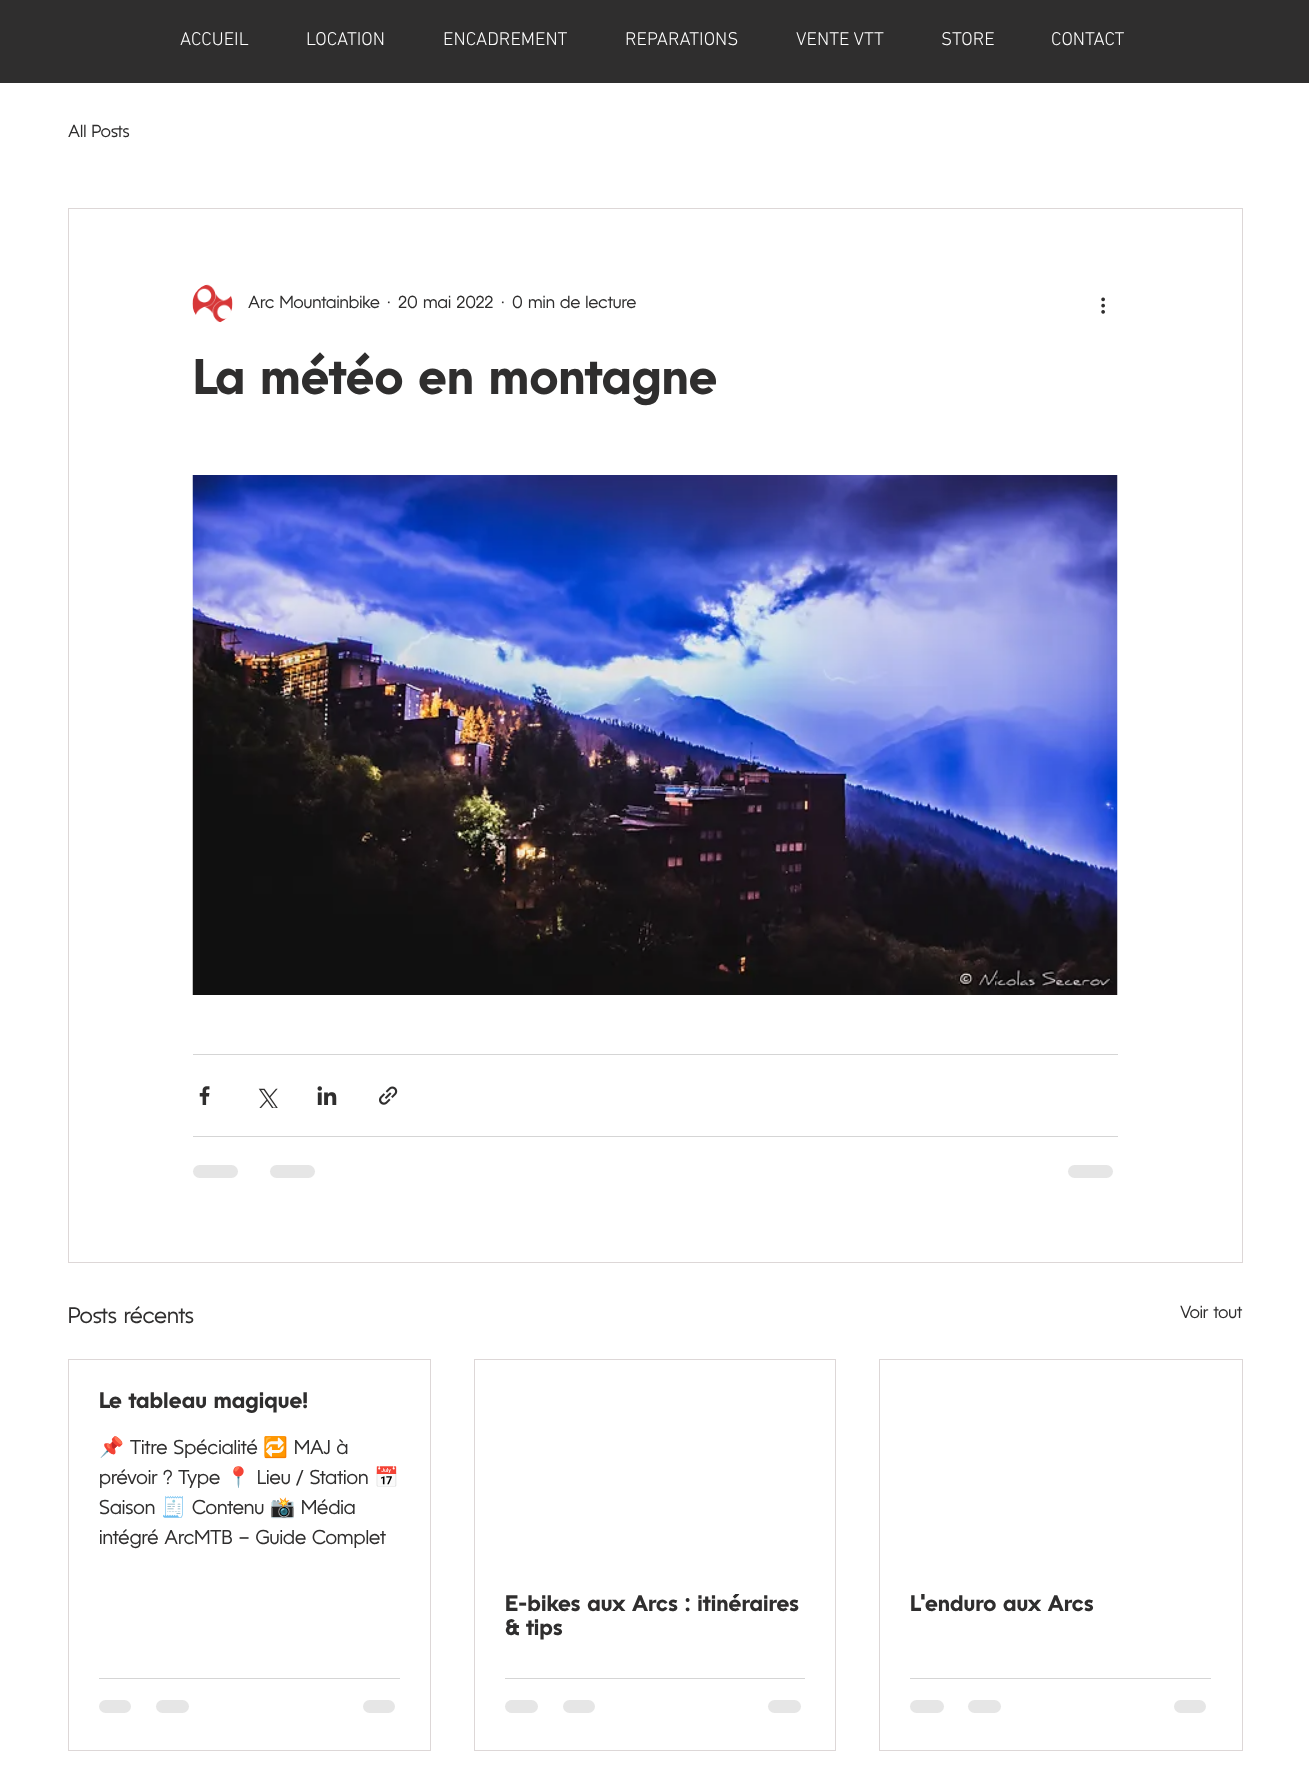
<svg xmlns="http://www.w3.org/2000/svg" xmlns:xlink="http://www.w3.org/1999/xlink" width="1309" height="1782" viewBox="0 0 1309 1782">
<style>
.cls-1{font:300 18.75px 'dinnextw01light';fill:#ffffff}
.cls-2{font:500 17.5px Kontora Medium;fill:#2f2e2e}
.cls-3{font:900 50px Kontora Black;fill:#2f2e2e}
.cls-4{font:500 22.5px Kontora Medium;fill:#2f2e2e}
.cls-5{font:900 22.5px Kontora Black;fill:#2f2e2e}
.cls-6{font:20px Noto Color Emoji;fill:#2f2e2e}
.cls-7{font:500 20px Kontora Medium;fill:#2f2e2e}
</style>
<defs>
<clipPath id="clip1"><rect x="99" y="1434" width="301" height="120"/></clipPath>
<clipPath id="clip2"><rect x="505" y="1594" width="300" height="47"/></clipPath>
<clipPath id="clip3"><rect x="910" y="1594" width="301" height="24"/></clipPath>
</defs>
<rect width="100%" height="100%" fill="#ffffff"/>
<rect fill="#2f2e2e" x="0" y="0" width="1309" height="83"/>
<rect fill="none" stroke="#ddd7d7" x="68.5" y="208.5" width="1174" height="1054"/>
<image xlink:href="image0.png" x="192" y="284" width="41" height="39"/>
<image xlink:href="image1.png" x="1101" y="297" width="4" height="17"/>
<image xlink:href="image2.png" x="192" y="475" width="926" height="520"/>
<rect fill="#d5d5d5" x="193" y="1054" width="925" height="1"/>
<image xlink:href="image3.png" x="199" y="1086" width="11" height="19"/>
<image xlink:href="image4.png" x="258" y="1088" width="20" height="20"/>
<image xlink:href="image5.png" x="317" y="1086" width="20" height="19"/>
<image xlink:href="image6.png" x="379" y="1086" width="19" height="19"/>
<rect fill="#d5d5d5" x="193" y="1136" width="925" height="1"/>
<rect fill="#e6e6e6" x="193" y="1165" width="45" height="13" rx="6.5"/>
<rect fill="#e6e6e6" x="270" y="1165" width="45" height="13" rx="6.5"/>
<rect fill="#e6e6e6" x="1068" y="1165" width="45" height="13" rx="6.5"/>
<rect fill="none" stroke="#ddd7d7" x="68.5" y="1359.5" width="362" height="391"/>
<rect fill="#d5d5d5" x="99" y="1678" width="301" height="1"/>
<rect fill="#e6e6e6" x="99" y="1700" width="32" height="13" rx="6.5"/>
<rect fill="#e6e6e6" x="156" y="1700" width="33" height="13" rx="6.5"/>
<rect fill="#e6e6e6" x="363" y="1700" width="32" height="13" rx="6.5"/>
<rect fill="none" stroke="#ddd7d7" x="474.5" y="1359.5" width="361" height="391"/>
<rect fill="#d5d5d5" x="505" y="1678" width="300" height="1"/>
<rect fill="#e6e6e6" x="505" y="1700" width="33" height="13" rx="6.5"/>
<rect fill="#e6e6e6" x="563" y="1700" width="32" height="13" rx="6.5"/>
<rect fill="#e6e6e6" x="768" y="1700" width="33" height="13" rx="6.5"/>
<rect fill="none" stroke="#ddd7d7" x="879.5" y="1359.5" width="363" height="391"/>
<rect fill="#d5d5d5" x="910" y="1678" width="301" height="1"/>
<rect fill="#e6e6e6" x="910" y="1700" width="34" height="13" rx="6.5"/>
<rect fill="#e6e6e6" x="968" y="1700" width="33" height="13" rx="6.5"/>
<rect fill="#e6e6e6" x="1174" y="1700" width="32" height="13" rx="6.5"/>
<text class="cls-1" x="180" y="45">ACCUEIL</text>
<text class="cls-1" x="306" y="45">LOCATION</text>
<text class="cls-1" x="443" y="45">ENCADREMENT</text>
<text class="cls-1" x="625" y="45">REPARATIONS</text>
<text class="cls-1" x="796" y="45">VENTE VTT</text>
<text class="cls-1" x="941" y="45">STORE</text>
<text class="cls-1" x="1051" y="45">CONTACT</text>
<text class="cls-2" x="68" y="137">All Posts</text>
<text class="cls-2" x="248" y="308">Arc Mountainbike</text>
<text class="cls-2" x="387" y="308">·</text>
<text class="cls-2" x="398" y="308">20 mai 2022</text>
<text class="cls-2" x="501" y="308">·</text>
<text class="cls-2" x="512" y="308">0 min de lecture</text>
<text class="cls-3" x="193" y="394">La météo en montagne</text>
<text class="cls-4" x="68" y="1323">Posts récents</text>
<text class="cls-2" x="1180" y="1318">Voir tout</text>
<text class="cls-5" x="99" y="1408">Le tableau magique!</text>
<g clip-path="url(#clip1)">
<text class="cls-6" x="99" y="1454">📌</text>
</g>
<text class="cls-7" x="130" y="1454">Titre Spécialité</text>
<text class="cls-6" x="263" y="1454">🔁</text>
<text class="cls-7" x="294" y="1454">MAJ à</text>
<text class="cls-7" x="99" y="1484">prévoir ? Type</text>
<text class="cls-6" x="226" y="1484">📍</text>
<text class="cls-7" x="257" y="1484">Lieu / Station</text>
<text class="cls-6" x="374" y="1484">📅</text>
<text class="cls-7" x="99" y="1514">Saison</text>
<text class="cls-6" x="161" y="1514">🧾</text>
<text class="cls-7" x="192" y="1514">Contenu</text>
<text class="cls-6" x="270" y="1514">📸</text>
<text class="cls-7" x="301" y="1514">Média</text>
<text class="cls-7" x="99" y="1544">intégré ArcMTB – Guide Complet</text>
<g clip-path="url(#clip2)">
<text class="cls-5" x="505" y="1611">E-bikes aux Arcs : itinéraires</text>
</g>
<text class="cls-5" x="505" y="1635">&amp; tips</text>
<g clip-path="url(#clip3)">
<text class="cls-5" x="910" y="1611">L'enduro aux Arcs</text>
</g>
</svg>
